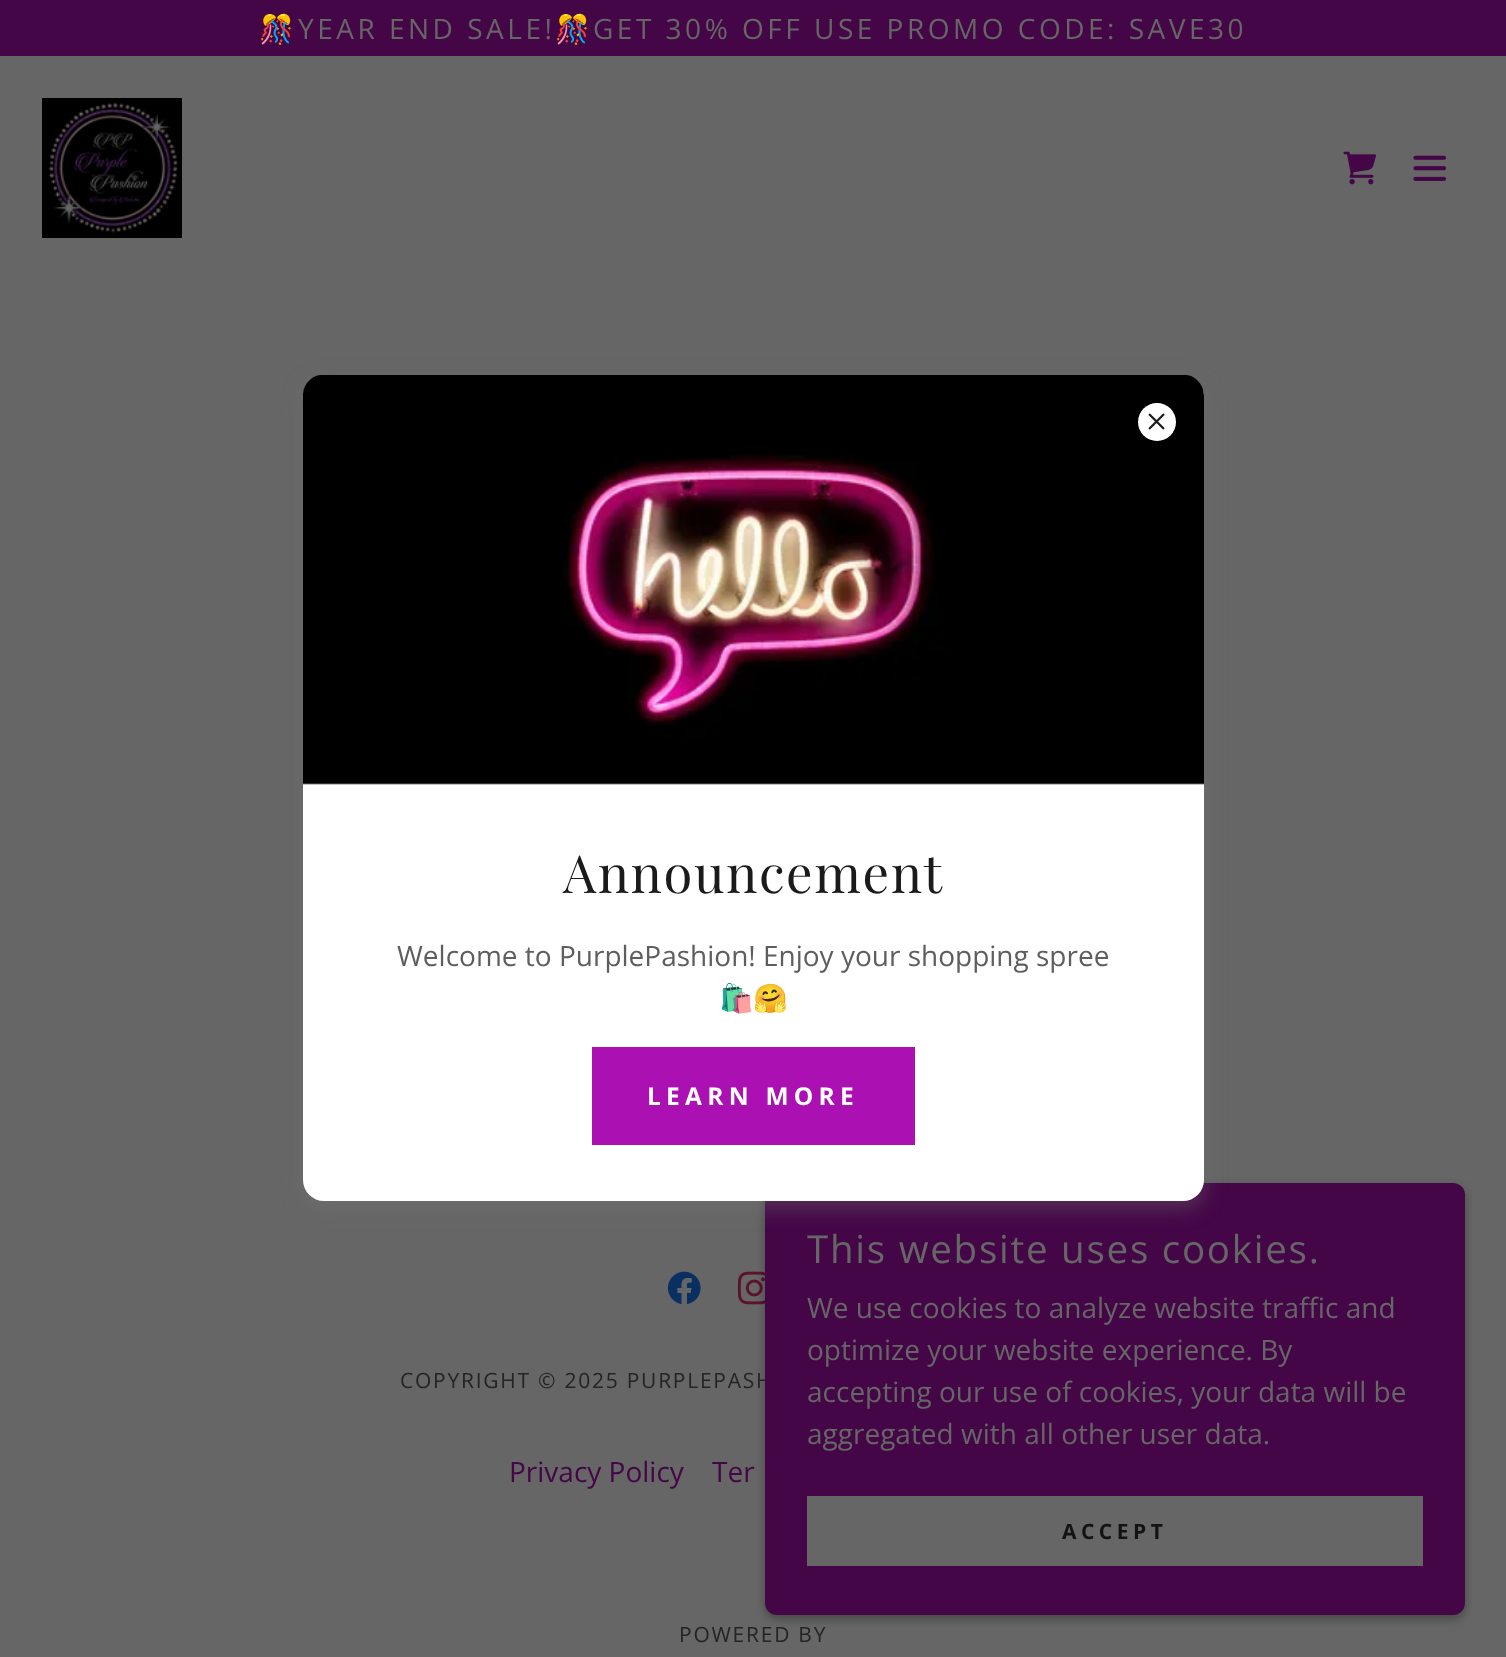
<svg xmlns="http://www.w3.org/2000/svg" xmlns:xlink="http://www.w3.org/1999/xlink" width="1506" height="1657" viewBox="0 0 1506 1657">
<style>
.cls-1{font:28px Noto Color Emoji;letter-spacing:3.5px;fill:#666666}
.cls-2{font:28px Open Sans;letter-spacing:3.5px;fill:#666666}
.cls-3{font:21px Open Sans;letter-spacing:1.75px;fill:#242424}
.cls-4{font:28px Open Sans;fill:#440647}
.cls-5{font:bold 24.5px Open Sans;letter-spacing:5.25px;fill:#ffffff}
.cls-6{font:28px Noto Color Emoji;fill:#5e5e5e}
.cls-7{font:28px Open Sans;fill:#5e5e5e}
.cls-8{font:52.5px Playfair Display;letter-spacing:1.6px;fill:#1b1b1b}
.cls-9{font:38.5px Open Sans;letter-spacing:1.75px;fill:#666666}
.cls-10{font:28px Open Sans;fill:#666666}
.cls-11{font:bold 21px Open Sans;letter-spacing:4.5px;fill:#131313}
</style>
<rect width="100%" height="100%" fill="#666666"/>
<rect fill="#440647" x="0" y="0" width="1506" height="56"/>
<image xlink:href="image0.png" x="42" y="98" width="140" height="140"/>
<image xlink:href="image1.png" x="1343" y="151" width="34" height="34"/>
<image xlink:href="image2.png" x="1413" y="155" width="34" height="26"/>
<image xlink:href="image5.png" x="667" y="1271" width="34" height="34"/>
<image xlink:href="image6.png" x="737" y="1271" width="28" height="34"/>
<rect fill="#000000" fill-opacity="0.3" filter="blur(5px)" x="765" y="1187" width="700" height="432" rx="12"/>
<text class="cls-1" x="259" y="39">🎊</text>
<text class="cls-2" x="298" y="39">YEAR END SALE!</text>
<text class="cls-1" x="555" y="39">🎊</text>
<text class="cls-2" x="593" y="39">GET 30% OFF USE PROMO CODE: SAVE30</text>
<text class="cls-3" x="400" y="1388">COPYRIGHT © 2025 PURPLEPASH</text>
<text class="cls-4" x="509" y="1482">Privacy Policy</text>
<text class="cls-4" x="712" y="1482">Ter</text>
<text class="cls-3" x="679" y="1642">POWERED BY</text>
<rect fill="#440647" x="765" y="1183" width="700" height="432" rx="12"/>
<rect fill="#757575" fill-opacity="0.4" filter="blur(10.5px)" x="303" y="382" width="901" height="826" rx="21"/>
<rect fill="#ffffff" x="303" y="375" width="901" height="826" rx="21"/>
<image xlink:href="image4.png" x="303" y="375" width="901" height="410"/>
<circle fill="#ffffff" cx="1157" cy="422" r="19"/>
<image xlink:href="image3.png" x="1148" y="413" width="17" height="17"/>
<rect fill="#ab10b2" x="592" y="1047" width="323" height="98"/>
<text class="cls-5" x="647" y="1105">LEARN MORE</text>
<text class="cls-6" x="719" y="1008">🛍️🤗</text>
<text class="cls-7" x="397" y="966">Welcome to PurplePashion! Enjoy your shopping spree</text>
<text class="cls-8" x="563" y="893">Announcement</text>
<text class="cls-9" x="807" y="1263">This website uses cookies.</text>
<text class="cls-10"><tspan x="807" y="1318">We use cookies to analyze website traffic and</tspan><tspan x="807" y="1360">optimize your website experience. By</tspan><tspan x="807" y="1402">accepting our use of cookies, your data will be</tspan><tspan x="807" y="1444">aggregated with all other user data.</tspan></text>
<rect fill="#666666" x="807" y="1496" width="616" height="70"/>
<text class="cls-11" x="1062" y="1539">ACCEPT</text>
</svg>
